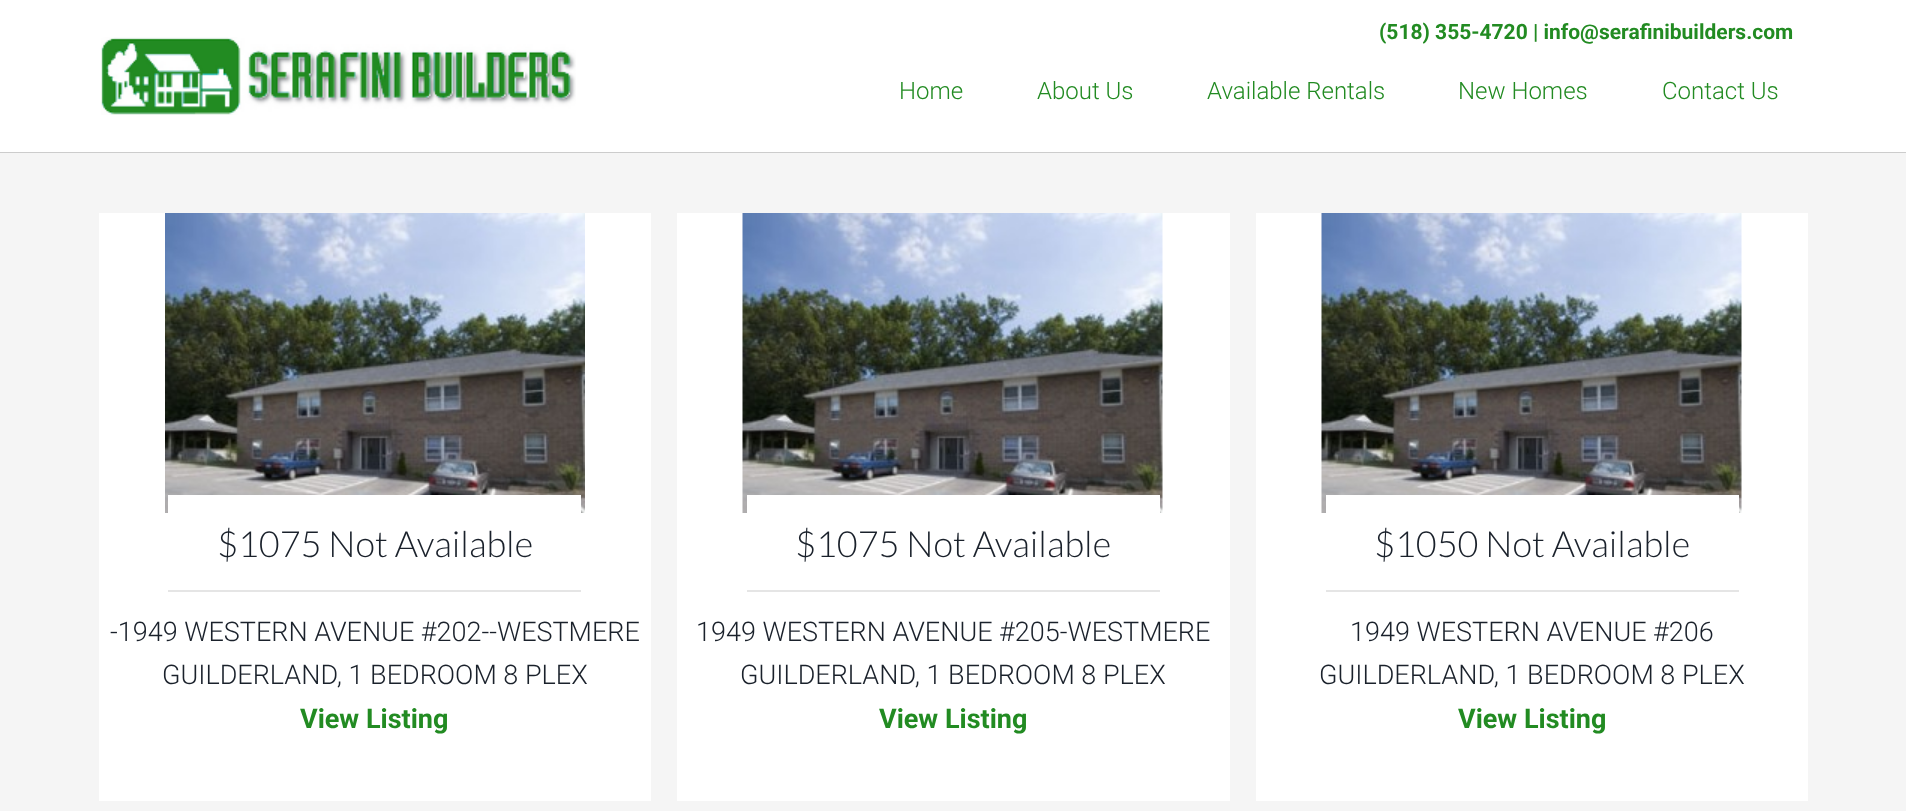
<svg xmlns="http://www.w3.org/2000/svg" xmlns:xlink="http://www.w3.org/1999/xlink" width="1906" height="811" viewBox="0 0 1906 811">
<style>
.cls-1{font:bold 21px Roboto;fill:#228b22}
.cls-2{font:300 24px Roboto;fill:#228b22}
.cls-3{font:300 36px Lato;fill:#1a212b}
.cls-4{font:300 27px Roboto;fill:#1a212b}
.cls-5{font:bold 27px Roboto;fill:#228b22}
</style>
<rect width="100%" height="100%" fill="#ffffff"/>
<rect fill="#cccccc" x="0" y="152" width="1906" height="1"/>
<image xlink:href="image0.png" x="101" y="37" width="475" height="78"/>
<rect fill="#f5f5f5" x="0" y="153" width="1906" height="658"/>
<rect fill="#ffffff" x="99" y="213" width="552" height="588"/>
<image xlink:href="image1.png" x="165" y="213" width="420" height="300"/>
<rect fill="#ffffff" x="168" y="495" width="413" height="18"/>
<rect fill="#e5e5e5" x="168" y="590" width="413" height="2"/>
<rect fill="#ffffff" x="677" y="213" width="553" height="588"/>
<image xlink:href="image2.png" x="742" y="213" width="421" height="300"/>
<rect fill="#ffffff" x="747" y="495" width="413" height="18"/>
<rect fill="#e5e5e5" x="747" y="590" width="413" height="2"/>
<rect fill="#ffffff" x="1256" y="213" width="552" height="588"/>
<image xlink:href="image3.png" x="1321" y="213" width="421" height="300"/>
<rect fill="#ffffff" x="1326" y="495" width="413" height="18"/>
<rect fill="#e5e5e5" x="1326" y="590" width="413" height="2"/>
<text class="cls-1" x="1379" y="39">(518) 355-4720 | info@serafinibuilders.com</text>
<text class="cls-2" x="899" y="99">Home</text>
<text class="cls-2" x="1037" y="99">About Us</text>
<text class="cls-2" x="1207" y="99">Available Rentals</text>
<text class="cls-2" x="1458" y="99">New Homes</text>
<text class="cls-2" x="1662" y="99">Contact Us</text>
<text class="cls-3" x="217" y="557">$1075 Not Available</text>
<text class="cls-4" x="110" y="641">-1949 WESTERN AVENUE #202--WESTMERE</text>
<text class="cls-4" x="162" y="684">GUILDERLAND, 1 BEDROOM 8 PLEX</text>
<text class="cls-5" x="300" y="728">View Listing</text>
<text class="cls-3" x="795" y="557">$1075 Not Available</text>
<text class="cls-4" x="696" y="641">1949 WESTERN AVENUE #205-WESTMERE</text>
<text class="cls-4" x="740" y="684">GUILDERLAND, 1 BEDROOM 8 PLEX</text>
<text class="cls-5" x="879" y="728">View Listing</text>
<text class="cls-3" x="1374" y="557">$1050 Not Available</text>
<text class="cls-4" x="1350" y="641">1949 WESTERN AVENUE #206</text>
<text class="cls-4" x="1319" y="684">GUILDERLAND, 1 BEDROOM 8 PLEX</text>
<text class="cls-5" x="1458" y="728">View Listing</text>
</svg>
